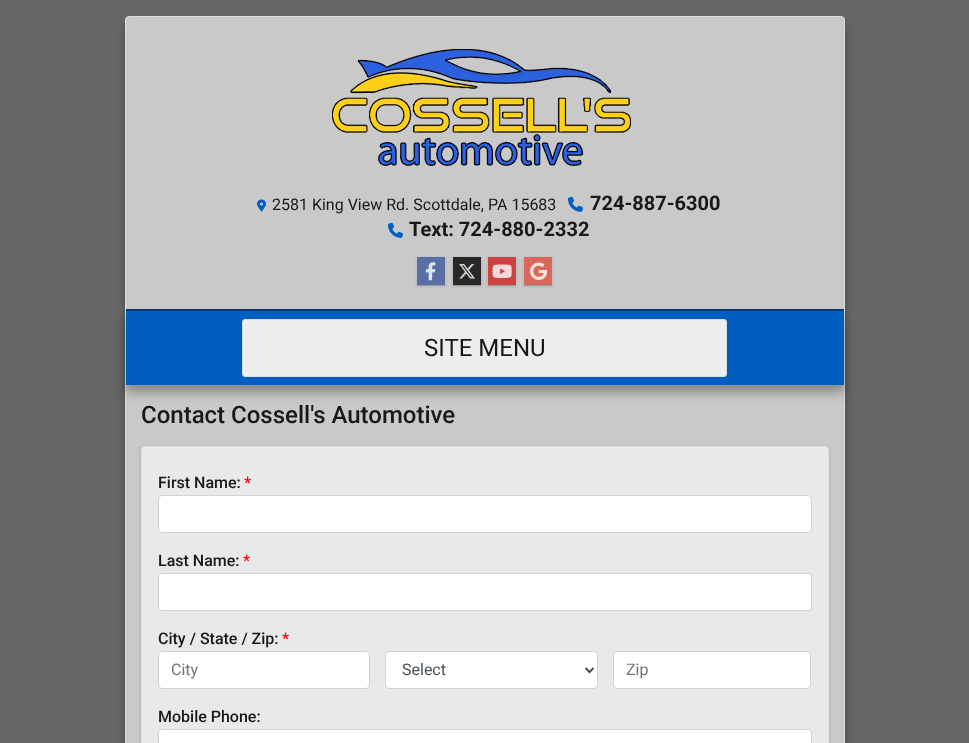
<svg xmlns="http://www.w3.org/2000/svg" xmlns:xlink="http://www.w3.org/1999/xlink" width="969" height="743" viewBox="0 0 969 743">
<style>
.cls-1{font:16px Roboto;fill:#181818}
.cls-2{font:bold 20px Roboto;fill:#181818}
.cls-3{font:24px Roboto;fill:#181818}
.cls-4{font:500 24px Roboto;fill:#181818}
.cls-5{font:500 16px Roboto;fill:#181818}
.cls-6{font:500 16px Roboto;fill:#ff0000}
.cls-7{font:16px Roboto;fill:#6c757d}
.cls-8{font:16px Roboto;fill:#495057}
</style>
<defs>
<clipPath id="clip1"><path d="M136 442H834V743H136ZM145 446H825C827 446 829 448 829 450V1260C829 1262 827 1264 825 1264H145C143 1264 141 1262 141 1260V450C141 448 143 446 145 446Z" clip-rule="evenodd"/></clipPath>
</defs>
<rect width="100%" height="100%" fill="#666666"/>
<rect fill="#000000" fill-opacity="0.1" filter="blur(2.5px)" x="125" y="21" width="720" height="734" rx="4"/>
<rect fill="#000000" fill-opacity="0.2" filter="blur(5px)" x="125" y="26" width="720" height="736" rx="4"/>
<rect fill="#c9c9c9" stroke="#dcdcdc" x="125.5" y="16.5" width="719" height="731" rx="3.5"/>
<image xlink:href="image0.png" x="332" y="49" width="299" height="117"/>
<image xlink:href="image1.png" x="257" y="199" width="9" height="13"/>
<image xlink:href="image2.png" x="568" y="196" width="15" height="16"/>
<image xlink:href="image2.png" x="388" y="222" width="15" height="16"/>
<rect fill="#282828" fill-opacity="0.2" filter="blur(0.5px)" x="417" y="258" width="28" height="28"/>
<rect fill="#282828" fill-opacity="0.1" filter="blur(1px)" x="416" y="257" width="30" height="30"/>
<rect fill="#576fa2" x="417" y="257" width="28" height="28"/>
<image xlink:href="image3.png" x="425" y="262" width="11" height="19"/>
<rect fill="#282828" fill-opacity="0.2" filter="blur(0.5px)" x="453" y="258" width="28" height="28"/>
<rect fill="#282828" fill-opacity="0.1" filter="blur(1px)" x="452" y="257" width="30" height="30"/>
<rect fill="#282828" x="453" y="257" width="28" height="28"/>
<image xlink:href="image4.png" x="459" y="263" width="16" height="16"/>
<rect fill="#282828" fill-opacity="0.2" filter="blur(0.5px)" x="488" y="258" width="28" height="28"/>
<rect fill="#282828" fill-opacity="0.1" filter="blur(1px)" x="487" y="257" width="30" height="30"/>
<rect fill="#cc4241" x="488" y="257" width="28" height="28"/>
<image xlink:href="image5.png" x="492" y="264" width="20" height="14"/>
<rect fill="#282828" fill-opacity="0.2" filter="blur(0.5px)" x="524" y="258" width="28" height="28"/>
<rect fill="#282828" fill-opacity="0.1" filter="blur(1px)" x="523" y="257" width="30" height="30"/>
<rect fill="#d8675c" x="524" y="257" width="28" height="28"/>
<image xlink:href="image6.png" x="530" y="262" width="18" height="18"/>
<rect fill="#000000" fill-opacity="0.1" filter="blur(2.5px)" x="126" y="314" width="718" height="76"/>
<rect fill="#000000" fill-opacity="0.2" filter="blur(5px)" x="126" y="319" width="718" height="76"/>
<rect fill="#005dc1" x="126" y="311" width="718" height="74"/>
<rect fill="#003875" x="126" y="309" width="718" height="2"/>
<rect fill="#eeeeee" stroke="#dcdcdc" x="242.5" y="319.5" width="484" height="57" rx="2.5"/>
<g clip-path="url(#clip1)">
<rect fill="#000000" fill-opacity="0.1" filter="blur(1px)" x="140" y="446" width="690" height="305" rx="5"/>
</g>
<rect fill="#ffffff" fill-opacity="0.6" stroke="#e1e1e1" x="141.5" y="446.5" width="687" height="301" rx="3.5"/>
<rect fill="#ffffff" stroke="#ced4da" x="158.5" y="495.5" width="653" height="37" rx="3.5"/>
<rect fill="#ffffff" stroke="#ced4da" x="158.5" y="573.5" width="653" height="37" rx="3.5"/>
<rect fill="#ffffff" stroke="#ced4da" x="158.5" y="651.5" width="211" height="37" rx="3.5"/>
<rect fill="#ffffff" stroke="#ced4da" x="385.5" y="651.5" width="212" height="37" rx="3.5"/>
<path fill="none" stroke="#495057" stroke-width="2" d="M585.5 668L589.5 672L593.5 668"/>
<rect fill="#ffffff" stroke="#ced4da" x="613.5" y="651.5" width="197" height="37" rx="3.5"/>
<rect fill="#ffffff" x="159" y="730" width="652" height="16" rx="3"/>
<rect fill="none" stroke="#ced4da" x="158.5" y="729.5" width="653" height="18" rx="3.5"/>
<text class="cls-1" x="272" y="210">2581 King View Rd. Scottdale, PA 15683</text>
<text class="cls-2" x="590" y="210">724-887-6300</text>
<text class="cls-2" x="409" y="236">Text: 724-880-2332</text>
<text class="cls-3" x="424" y="356">SITE MENU</text>
<text class="cls-4" x="141" y="423">Contact Cossell's Automotive</text>
<text class="cls-5" x="158" y="488">First Name:</text>
<text class="cls-6" x="244" y="488">*</text>
<text class="cls-5" x="158" y="566">Last Name:</text>
<text class="cls-6" x="243" y="566">*</text>
<text class="cls-5" x="158" y="644">City / State / Zip:</text>
<text class="cls-6" x="282" y="644">*</text>
<text class="cls-7" x="171" y="675">City</text>
<text class="cls-8" x="402" y="675">Select</text>
<text class="cls-7" x="626" y="675">Zip</text>
<text class="cls-5" x="158" y="722">Mobile Phone:</text>
</svg>
